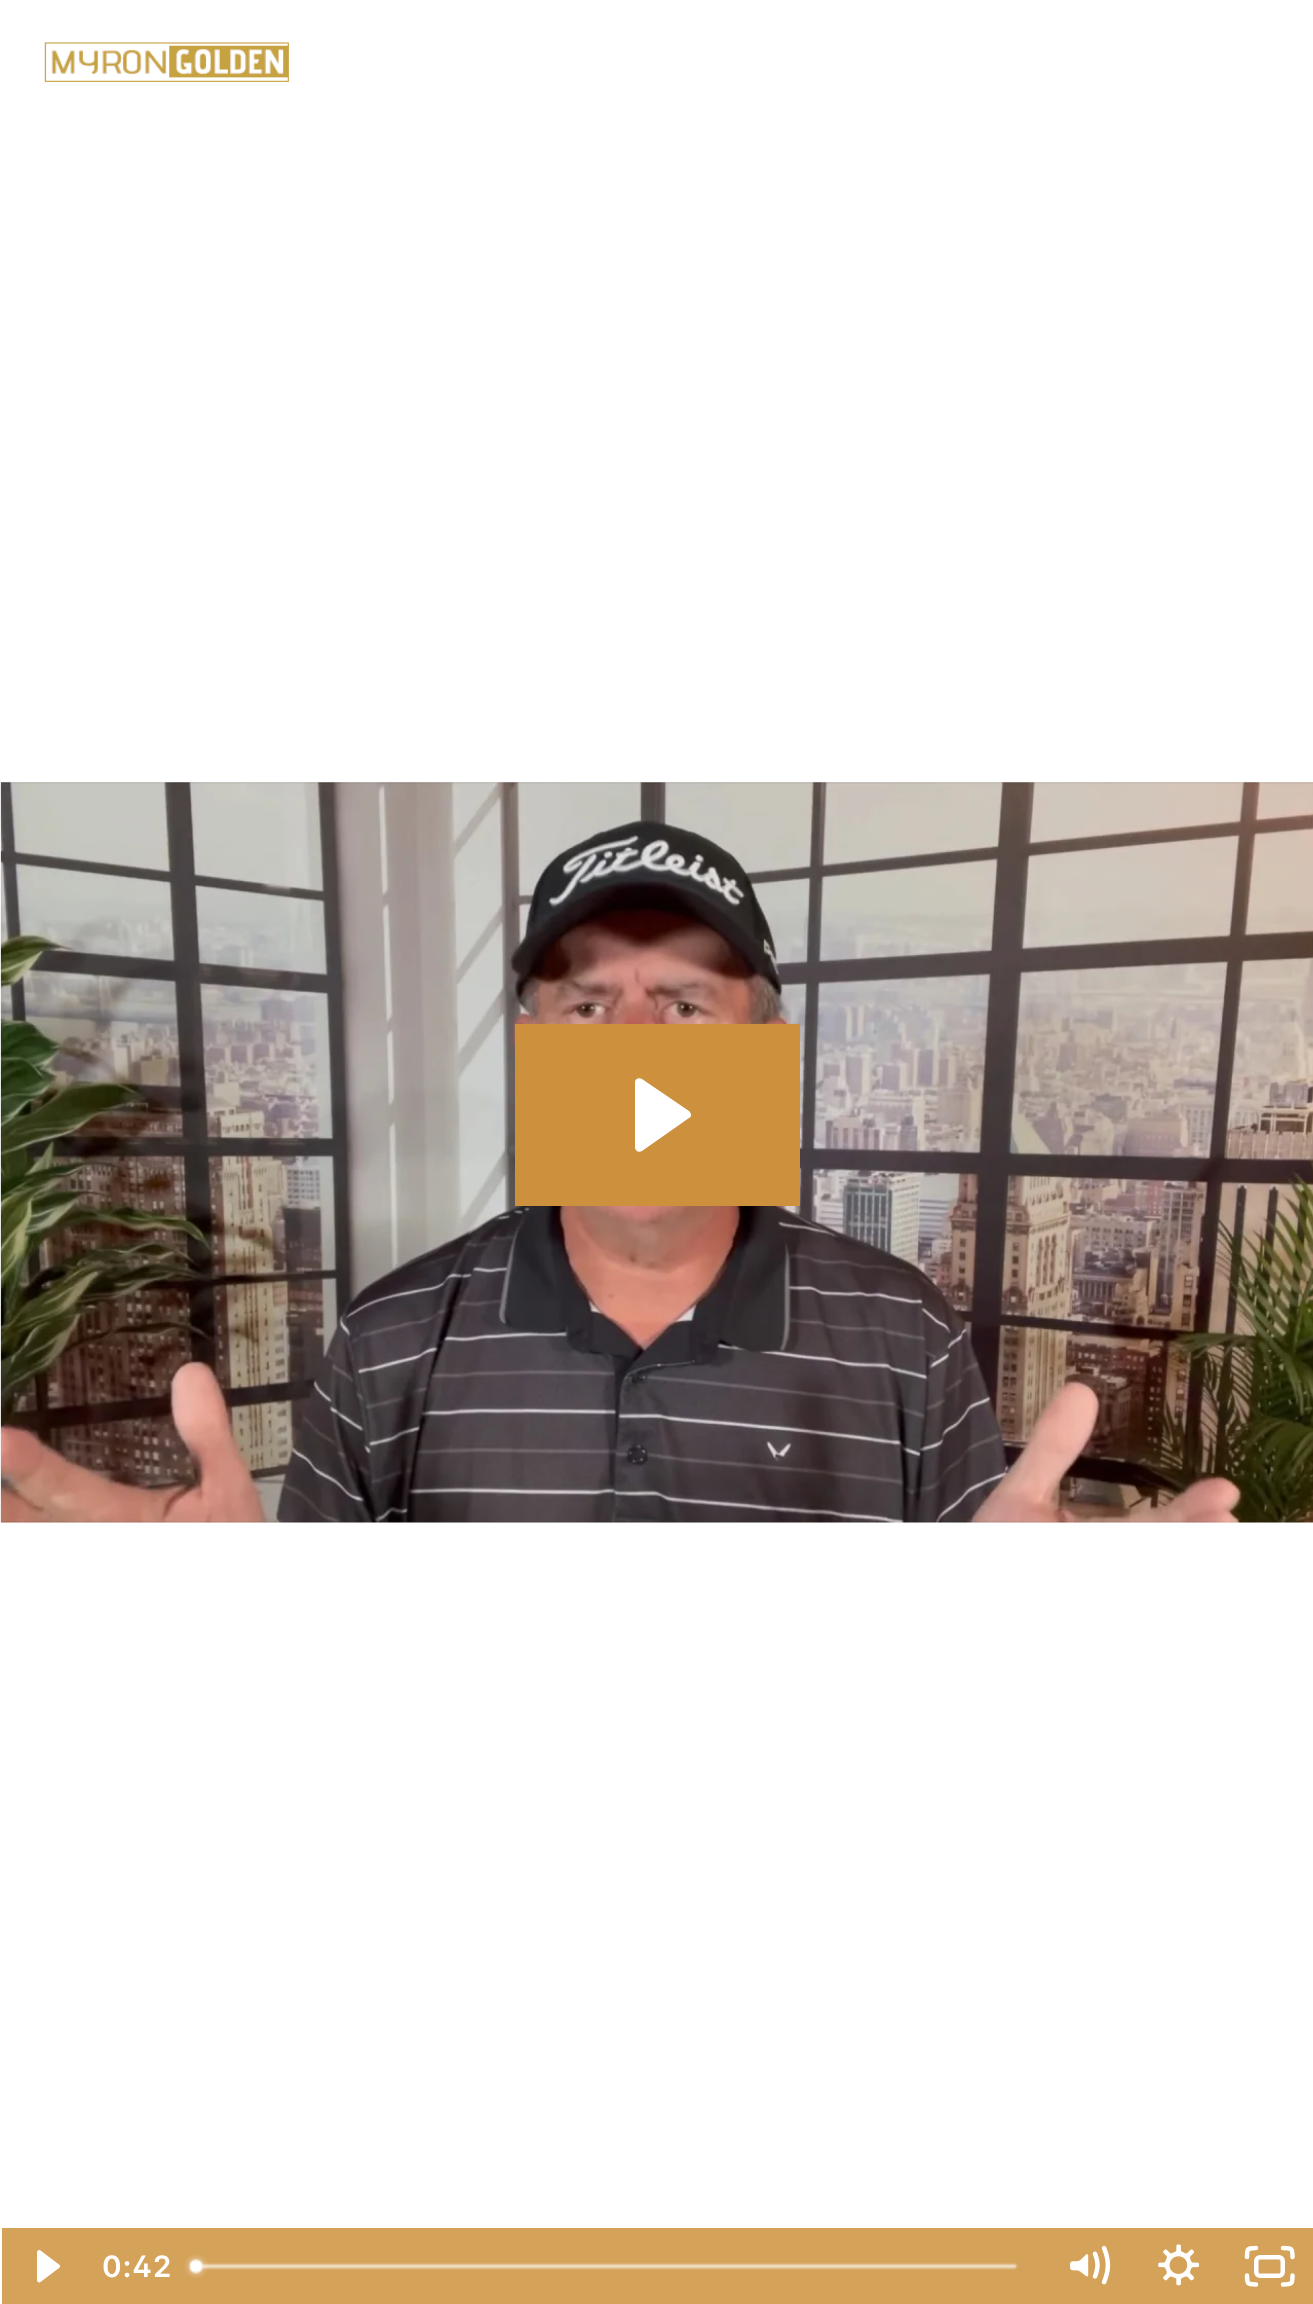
<svg xmlns="http://www.w3.org/2000/svg" xmlns:xlink="http://www.w3.org/1999/xlink" width="1313" height="2304" viewBox="0 0 1313 2304">
<style>
.cls-1{font:600 29.5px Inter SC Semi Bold;letter-spacing:1px;fill:#ffffff}
</style>
<rect width="100%" height="100%" fill="#ffffff"/>
<image xlink:href="image0.png" x="44" y="42" width="245" height="40"/>
<image xlink:href="image1.png" x="0" y="782" width="1313" height="741"/>
<rect fill="#cd913d" x="515" y="1024" width="285" height="182"/>
<path fill="#ffffff" fill-rule="evenodd" d="M642 1079C639 1077 635 1079 635 1082V1147C635 1151 639 1153 642 1151L689 1118C690 1118 691 1116 691 1115C691 1113 690 1112 689 1111Z"/>
<rect fill="#d5a25a" x="2" y="2228" width="1311" height="76"/>
<path fill="#ffffff" d="M59 2264.5C60.5 2265.5 60.5 2267 59 2268L40.5 2282C39 2283 37 2282 37 2280V2252.5C37 2250.5 39 2249.5 40.5 2250.5Z"/>
<image xlink:href="image2.png" x="184" y="2254" width="834" height="24"/>
<image xlink:href="image3.png" x="1070" y="2245" width="41" height="40"/>
<image xlink:href="image4.png" x="1158" y="2244" width="41" height="42"/>
<rect fill="none" stroke="#ffffff" stroke-width="4.5" x="1256.25" y="2257.25" width="26.5" height="18.5" rx="3.75"/>
<path fill="none" stroke="#ffffff" stroke-width="4.5" stroke-linecap="round" stroke-linejoin="round" d="M1247 2257C1247 2248.5 1247.5 2248 1256 2248M1292.5 2257C1292.5 2248.5 1292 2248 1283 2248M1292.5 2275.5C1292.5 2284 1292 2284.5 1283 2284.5M1247 2275.5C1247 2284 1247.5 2284.5 1256 2284.5"/>
<text class="cls-1" x="102" y="2277">0:42</text>
</svg>
